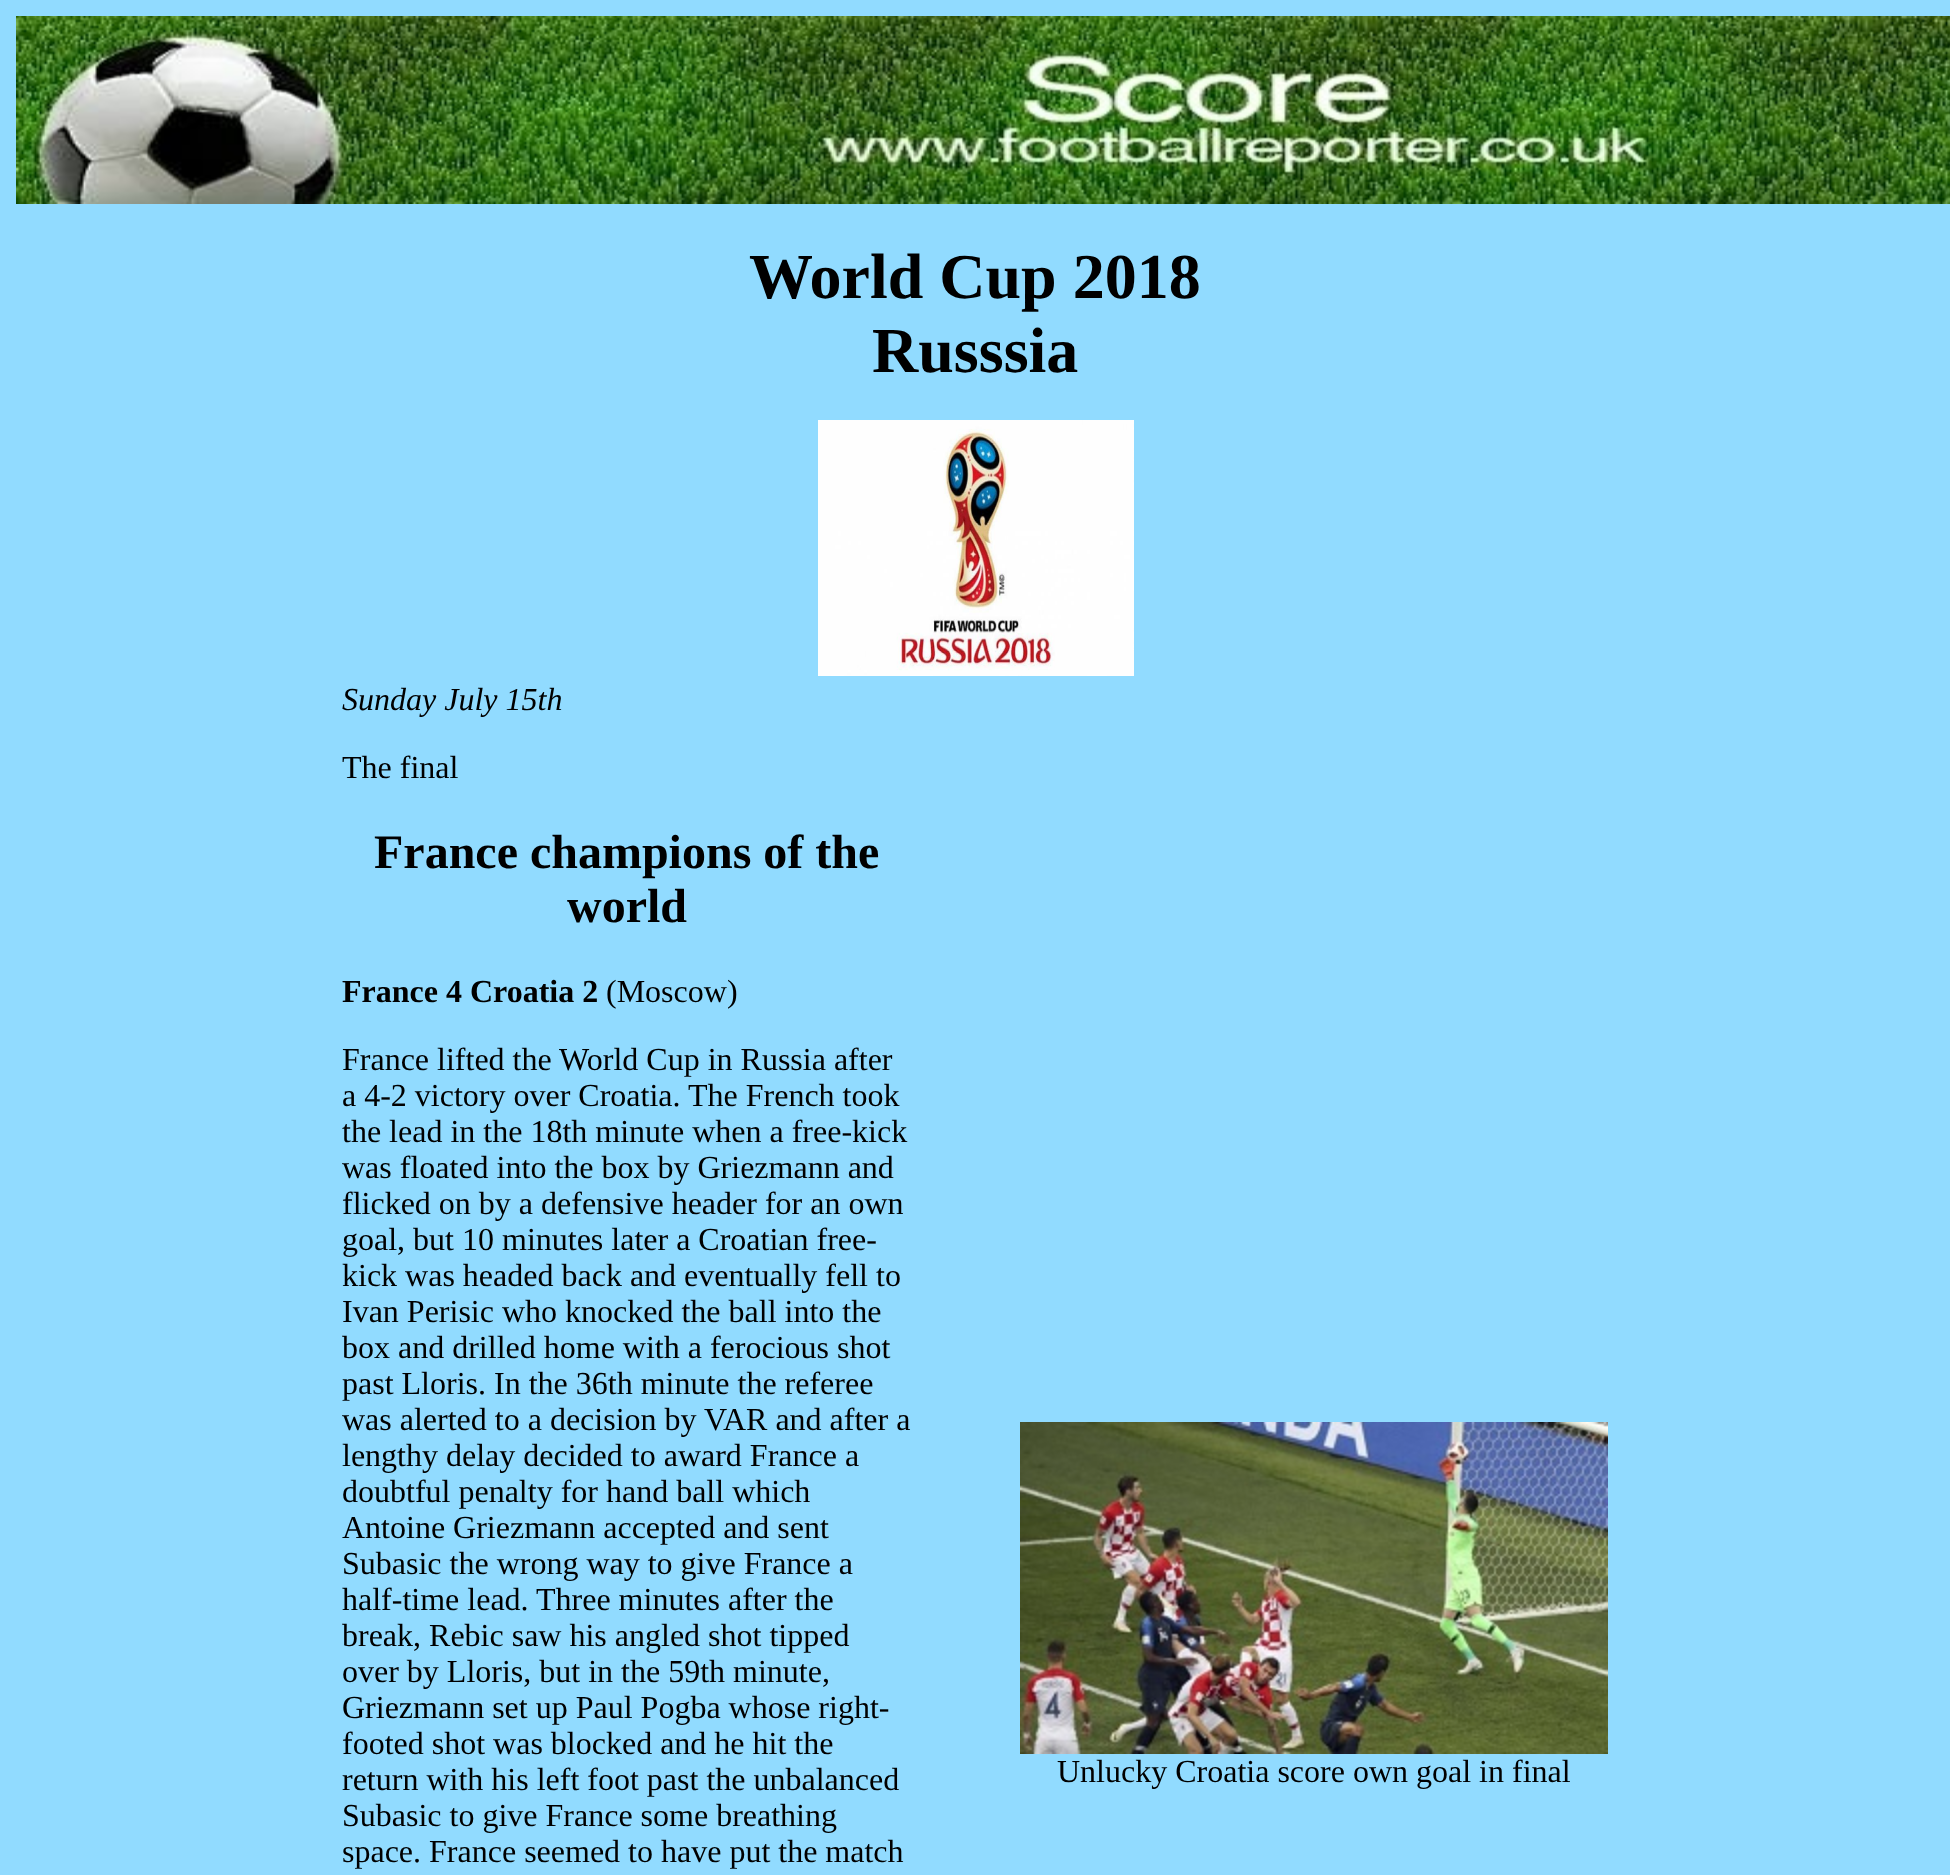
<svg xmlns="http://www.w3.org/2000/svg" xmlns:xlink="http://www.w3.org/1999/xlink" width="1950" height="1875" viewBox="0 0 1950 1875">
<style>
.cls-1{font:bold 64px Liberation Serif;fill:#000000}
.cls-2{font:italic 32px Liberation Serif;fill:#000000}
.cls-3{font:32px Liberation Serif;fill:#000000}
.cls-4{font:bold 48px Liberation Serif;fill:#000000}
.cls-5{font:bold 32px Liberation Serif;fill:#000000}
</style>
<rect width="100%" height="100%" fill="#91dbff"/>
<image xlink:href="image0.png" x="16" y="16" width="1934" height="188"/>
<image xlink:href="image1.png" x="818" y="420" width="316" height="256"/>
<image xlink:href="image2.png" x="1020" y="1422" width="588" height="332"/>
<text class="cls-1" x="749" y="298">World Cup 2018</text>
<text class="cls-1" x="872" y="372">Russsia</text>
<text class="cls-2" x="342" y="710">Sunday July 15th</text>
<text class="cls-3" x="342" y="778">The final</text>
<text class="cls-4" x="374" y="868">France champions of the</text>
<text class="cls-4" x="567" y="922">world</text>
<text class="cls-5" x="342" y="1002">France 4 Croatia 2</text>
<text class="cls-3" x="606" y="1002">(Moscow)</text>
<text class="cls-3"><tspan x="342" y="1070">France lifted the World Cup in Russia after</tspan><tspan x="342" y="1106">a 4-2 victory over Croatia. The French took</tspan><tspan x="342" y="1142">the lead in the 18th minute when a free-kick</tspan><tspan x="342" y="1178">was floated into the box by Griezmann and</tspan><tspan x="342" y="1214">flicked on by a defensive header for an own</tspan><tspan x="342" y="1250">goal, but 10 minutes later a Croatian free-</tspan><tspan x="342" y="1286">kick was headed back and eventually fell to</tspan><tspan x="342" y="1322">Ivan Perisic who knocked the ball into the</tspan><tspan x="342" y="1358">box and drilled home with a ferocious shot</tspan><tspan x="342" y="1394">past Lloris. In the 36th minute the referee</tspan><tspan x="342" y="1430">was alerted to a decision by VAR and after a</tspan><tspan x="342" y="1466">lengthy delay decided to award France a</tspan><tspan x="342" y="1502">doubtful penalty for hand ball which</tspan><tspan x="342" y="1538">Antoine Griezmann accepted and sent</tspan><tspan x="342" y="1574">Subasic the wrong way to give France a</tspan><tspan x="342" y="1610">half-time lead. Three minutes after the</tspan><tspan x="342" y="1646">break, Rebic saw his angled shot tipped</tspan><tspan x="342" y="1682">over by Lloris, but in the 59th minute,</tspan><tspan x="342" y="1718">Griezmann set up Paul Pogba whose right-</tspan><tspan x="342" y="1754">footed shot was blocked and he hit the</tspan><tspan x="342" y="1790">return with his left foot past the unbalanced</tspan><tspan x="342" y="1826">Subasic to give France some breathing</tspan><tspan x="342" y="1862">space. France seemed to have put the match</tspan></text>
<text class="cls-3" x="1057" y="1782">Unlucky Croatia score own goal in final</text>
</svg>
